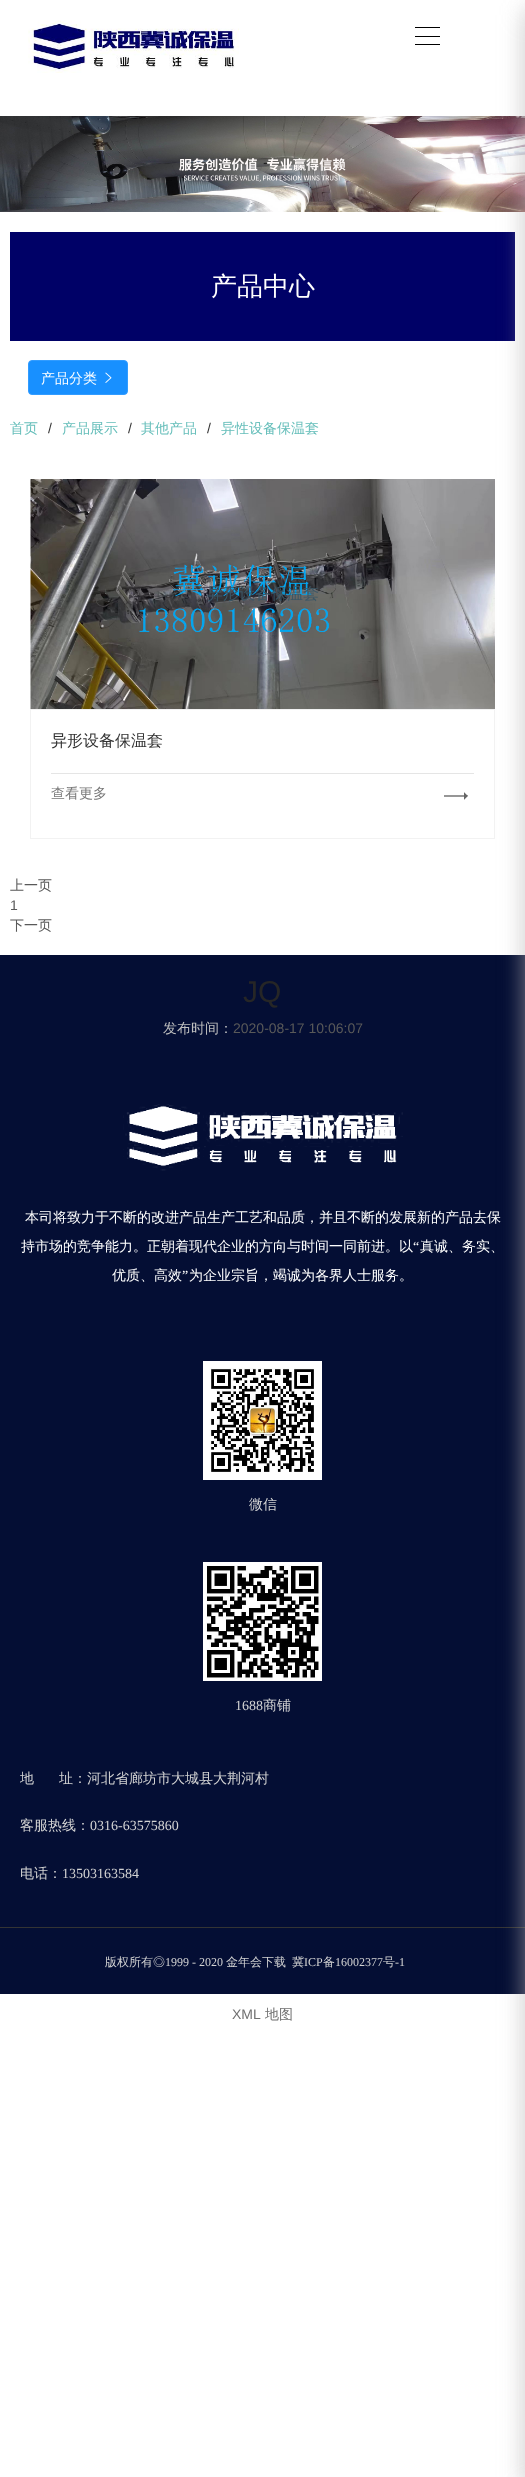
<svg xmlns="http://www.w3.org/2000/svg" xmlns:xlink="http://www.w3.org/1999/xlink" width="525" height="2477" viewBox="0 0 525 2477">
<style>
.cls-1{font:500 26px WenQuanYi Zen Hei;fill:#ffffff}
.cls-2{font:500 14px WenQuanYi Zen Hei;fill:#ffffff}
.cls-3{font:500 14px WenQuanYi Zen Hei;fill:#65beba}
.cls-4{font:14px Liberation Sans;fill:#333333}
.cls-5{font:500 16px WenQuanYi Zen Hei;fill:#3c5766}
.cls-6{font:500 16px WenQuanYi Zen Hei;fill:#333333}
.cls-7{font:500 14px WenQuanYi Zen Hei;fill:#777777}
.cls-8{font:500 14px WenQuanYi Zen Hei;fill:#595959}
.cls-9{font:14px Liberation Sans;fill:#595959}
.cls-10{font:30px Liberation Sans;fill:#262626}
.cls-11{font:500 14px WenQuanYi Zen Hei;fill:#bfbfbf}
.cls-12{font:14px Liberation Serif;fill:#ffffff}
.cls-13{font:500 14px WenQuanYi Zen Hei;fill:#d3d3d3}
.cls-14{font:14px Liberation Serif;fill:#d3d3d3}
.cls-15{font:500 12px WenQuanYi Zen Hei;fill:#d3d3d3}
.cls-16{font:12px Liberation Serif;fill:#d3d3d3}
.cls-17{font:14px Liberation Sans;fill:#707070}
.cls-18{font:500 14px WenQuanYi Zen Hei;fill:#707070}
</style>
<rect width="100%" height="100%" fill="#ffffff"/>
<image xlink:href="image0.png" x="28" y="20" width="211" height="53"/>
<rect fill="#000000" x="415" y="36" width="25" height="1"/>
<rect fill="#000000" x="415" y="27" width="25" height="1"/>
<rect fill="#000000" x="415" y="44" width="25" height="1"/>
<image xlink:href="image1.png" x="0" y="116" width="525" height="96"/>
<rect fill="#000167" x="10" y="232" width="505" height="109"/>
<image xlink:href="image3.png" x="30" y="479" width="465" height="230"/>
<rect fill="none" stroke="#f2f2f2" x="30.5" y="709.5" width="464" height="129"/>
<rect fill="#040e34" x="0" y="955" width="525" height="1039"/>
<rect fill="#343434" x="0" y="1927" width="525" height="1"/>
<rect fill="#a7a5a5" fill-opacity="0.38" filter="blur(13.5px)" x="525" y="15" width="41" height="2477"/>
<rect fill="#1890ff" stroke="#329cff" x="28.5" y="360.5" width="99" height="34" rx="3.5"/>
<image xlink:href="image2.png" x="105" y="372" width="7" height="11"/>
<rect fill="#c0c0c0" fill-opacity="0.4" filter="blur(10px)" x="525" y="5" width="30" height="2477"/>
<rect fill="#e5e5e5" x="51" y="773" width="423" height="1"/>
<image xlink:href="image4.png" x="444" y="792" width="24" height="8"/>
<image xlink:href="image5.png" x="123" y="1104" width="280" height="67"/>
<image xlink:href="image6.png" x="203" y="1361" width="119" height="119"/>
<image xlink:href="image7.png" x="203" y="1562" width="119" height="119"/>
<text class="cls-1" x="211" y="295">产品中心</text>
<text class="cls-2" x="41" y="383">产品分类</text>
<text class="cls-3" x="10" y="433">首页</text>
<text class="cls-4" x="48" y="433">/</text>
<text class="cls-3" x="62" y="433">产品展示</text>
<text class="cls-4" x="128" y="433">/</text>
<text class="cls-3" x="141" y="433">其他产品</text>
<text class="cls-4" x="207" y="433">/</text>
<text class="cls-3" x="221" y="433">异性设备保温套</text>
<text class="cls-5" x="207" y="599">异形设备保温套</text>
<text class="cls-6" x="51" y="746">异形设备保温套</text>
<text class="cls-7" x="51" y="798">查看更多</text>
<text class="cls-8" x="10" y="890">上一页</text>
<text class="cls-9" x="10" y="910">1</text>
<text class="cls-8" x="10" y="930">下一页</text>
<text class="cls-10" x="243" y="1002">JQ</text>
<text class="cls-11" x="163" y="1033">发布时间：</text>
<text class="cls-9" x="233" y="1033">2020-08-17 10:06:07</text>
<text class="cls-2" x="25" y="1222">本司将致力于不断的改进产品生产工艺和品质，并且不断的发展新的产品去保</text>
<text class="cls-2" x="21" y="1251">持市场的竞争能力。正朝着现代企业的方向与时间一同前进。以</text>
<text class="cls-12" x="413" y="1251">“</text>
<text class="cls-2" x="420" y="1251">真诚、务实、</text>
<text class="cls-2" x="112" y="1280">优质、高效</text>
<text class="cls-12" x="182" y="1280">”</text>
<text class="cls-2" x="189" y="1280">为企业宗旨，竭诚为各界人士服务。</text>
<text class="cls-13" x="249" y="1509">微信</text>
<text class="cls-14" x="235" y="1710">1688</text>
<text class="cls-13" x="263" y="1710">商铺</text>
<text class="cls-13" x="20" y="1783">地</text>
<text class="cls-13" x="59" y="1783">址：河北省廊坊市大城县大荆河村</text>
<text class="cls-13" x="20" y="1830">客服热线：</text>
<text class="cls-14" x="90" y="1830">0316-63575860</text>
<text class="cls-13" x="20" y="1878">电话：</text>
<text class="cls-14" x="62" y="1878">13503163584</text>
<text class="cls-15" x="105" y="1966">版权所有◎</text>
<text class="cls-16" x="165" y="1966">1999 - 2020</text>
<text class="cls-15" x="226" y="1966">金年会下载</text>
<text class="cls-15" x="292" y="1966">冀</text>
<text class="cls-16" x="304" y="1966">ICP</text>
<text class="cls-15" x="323" y="1966">备</text>
<text class="cls-16" x="335" y="1966">16002377</text>
<text class="cls-15" x="383" y="1966">号</text>
<text class="cls-16" x="395" y="1966">-1</text>
<text class="cls-17" x="232" y="2019">XML</text>
<text class="cls-18" x="265" y="2019">地图</text>
</svg>
